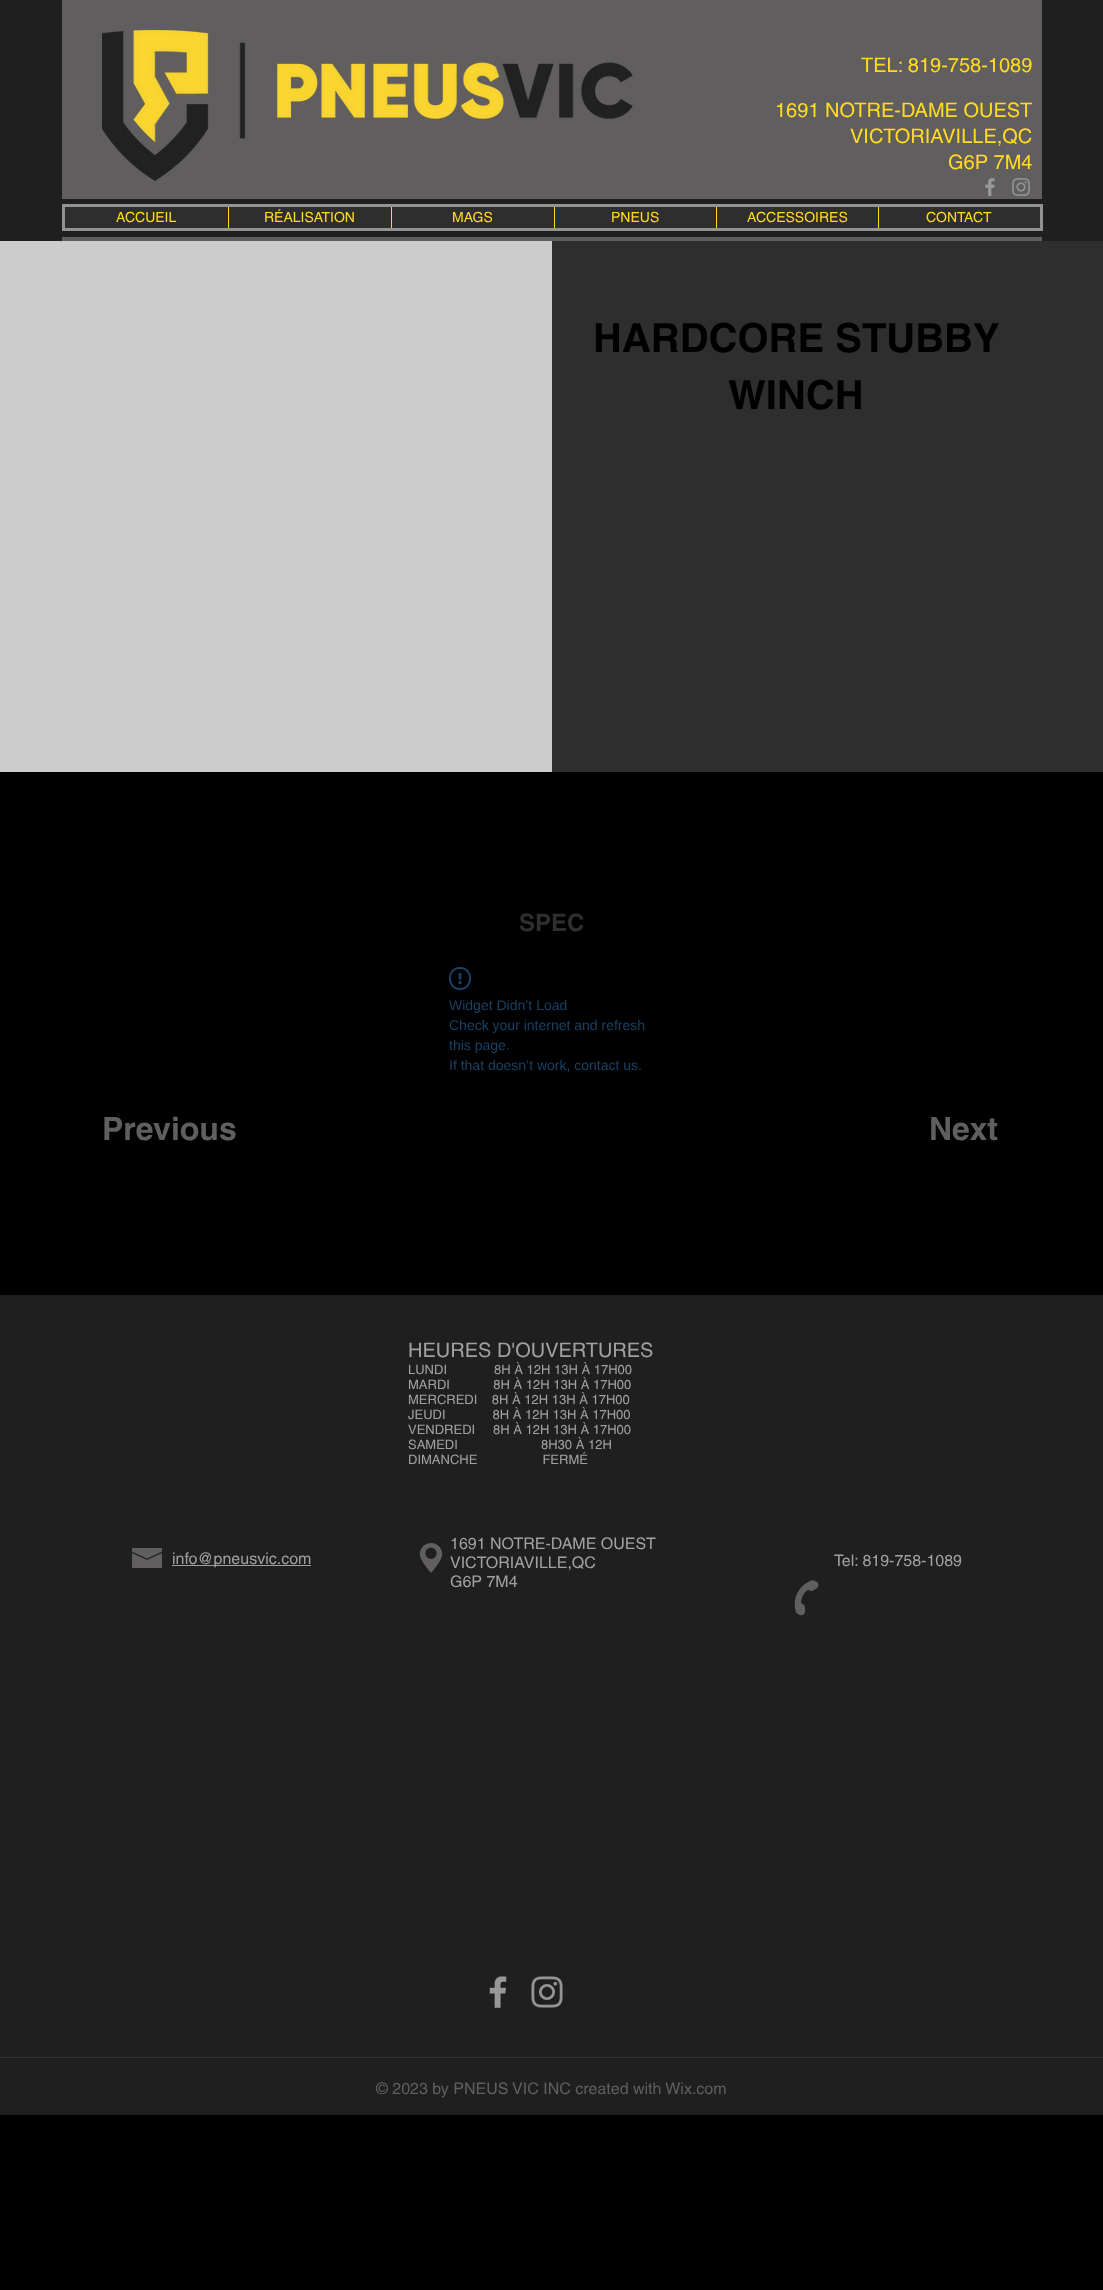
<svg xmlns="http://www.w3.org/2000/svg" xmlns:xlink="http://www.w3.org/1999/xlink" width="1103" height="2290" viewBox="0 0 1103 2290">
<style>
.cls-1{font:20px helvetica;fill:#ffda1f}
.cls-2{font:14px helvetica;fill:#ffda1f}
.cls-3{font:bold 40px helvetica;fill:#000000}
.cls-4{font:bold 24px helvetica;fill:#2f2e2e}
.cls-5{font:14px Liberation Sans;fill:#174165}
.cls-6{font:bold 32px helvetica;fill:#605e5e}
.cls-7{font:20px helvetica;fill:#a0a09f}
.cls-8{font:13px helvetica;fill:#a0a09f}
.cls-9{font:16px helvetica;fill:#a0a09f}
.cls-10{font:16px helvetica;fill:#605e5e}
</style>
<rect width="100%" height="100%" fill="#000000"/>
<rect fill="#1f1f1f" x="0" y="0" width="1103" height="241"/>
<rect fill="#605e5e" x="62" y="0" width="980" height="241"/>
<image xlink:href="image0.png" x="102" y="30" width="531" height="151"/>
<image xlink:href="image1.png" x="985" y="178" width="10" height="19"/>
<image xlink:href="image2.png" x="1012" y="178" width="18" height="18"/>
<rect fill="#1f1f1f" x="62" y="199" width="980" height="38"/>
<rect fill="#2f2e2e" stroke="#929291" stroke-width="3" x="63.5" y="205.5" width="978" height="24"/>
<rect fill="#ffda1f" x="228" y="207" width="1" height="21"/>
<rect fill="#ffda1f" x="391" y="207" width="1" height="21"/>
<rect fill="#ffda1f" x="554" y="207" width="1" height="21"/>
<rect fill="#ffda1f" x="716" y="207" width="1" height="21"/>
<rect fill="#ffda1f" x="878" y="207" width="1" height="21"/>
<rect fill="#cccccc" x="0" y="241" width="552" height="531"/>
<rect fill="#2f2e2e" x="552" y="241" width="551" height="531"/>
<image xlink:href="image3.png" x="449" y="967" width="22" height="23"/>
<rect fill="#1f1f1f" x="0" y="1295" width="1103" height="820"/>
<image xlink:href="image4.png" x="132" y="1548" width="30" height="20"/>
<rect fill="#a0a09f" x="172" y="1565" width="139" height="1"/>
<image xlink:href="image5.png" x="419" y="1543" width="24" height="30"/>
<image xlink:href="image6.png" x="794" y="1580" width="25" height="36"/>
<image xlink:href="image7.png" x="489" y="1976" width="18" height="32"/>
<image xlink:href="image8.png" x="531" y="1976" width="32" height="32"/>
<rect fill="#313131" x="0" y="2057" width="1103" height="1"/>
<text class="cls-1" x="861" y="72">TEL: 819-758-1089</text>
<text class="cls-1" x="775" y="117">1691 NOTRE-DAME OUEST</text>
<text class="cls-1" x="850" y="143">VICTORIAVILLE,QC</text>
<text class="cls-1" x="948" y="169">G6P 7M4</text>
<text class="cls-2" x="116" y="222">ACCUEIL</text>
<text class="cls-2" x="264" y="222">RÉALISATION</text>
<text class="cls-2" x="452" y="222">MAGS</text>
<text class="cls-2" x="611" y="222">PNEUS</text>
<text class="cls-2" x="747" y="222">ACCESSOIRES</text>
<text class="cls-2" x="926" y="222">CONTACT</text>
<text class="cls-3" x="593" y="352">HARDCORE STUBBY</text>
<text class="cls-3" x="728" y="409">WINCH</text>
<text class="cls-4" x="519" y="931">SPEC</text>
<text class="cls-5"><tspan x="449" y="1010">Widget Didn’t Load</tspan><tspan x="449" y="1030">Check your internet and refresh</tspan><tspan x="449" y="1050">this page.</tspan><tspan x="449" y="1070">If that doesn’t work, contact us.</tspan></text>
<text class="cls-6" x="102" y="1140">Previous</text>
<text class="cls-6" x="929" y="1140">Next</text>
<text class="cls-7" x="408" y="1357">HEURES D'OUVERTURES</text>
<text class="cls-8" xml:space="preserve"><tspan x="408" y="1374">LUNDI             8H À 12H 13H À 17H00</tspan><tspan x="408" y="1389">MARDI            8H À 12H 13H À 17H00</tspan><tspan x="408" y="1404">MERCREDI    8H À 12H 13H À 17H00</tspan><tspan x="408" y="1419">JEUDI             8H À 12H 13H À 17H00</tspan><tspan x="408" y="1434">VENDREDI</tspan></text>
<text class="cls-8" x="493" y="1434">8H À 12H 13H À 17H00</text>
<text class="cls-8" xml:space="preserve"><tspan x="408" y="1449">SAMEDI                       8H30 À 12H</tspan><tspan x="408" y="1464">DIMANCHE                  FERMÉ</tspan></text>
<text class="cls-9" x="172" y="1564">info@pneusvic.com</text>
<text class="cls-9"><tspan x="450" y="1549">1691 NOTRE-DAME OUEST</tspan><tspan x="450" y="1568">VICTORIAVILLE,QC</tspan><tspan x="450" y="1587">G6P 7M4</tspan></text>
<text class="cls-9" x="834" y="1566">Tel: 819-758-1089</text>
<text class="cls-10" x="376" y="2094">© 2023 by PNEUS VIC INC created with Wix.com</text>
</svg>
